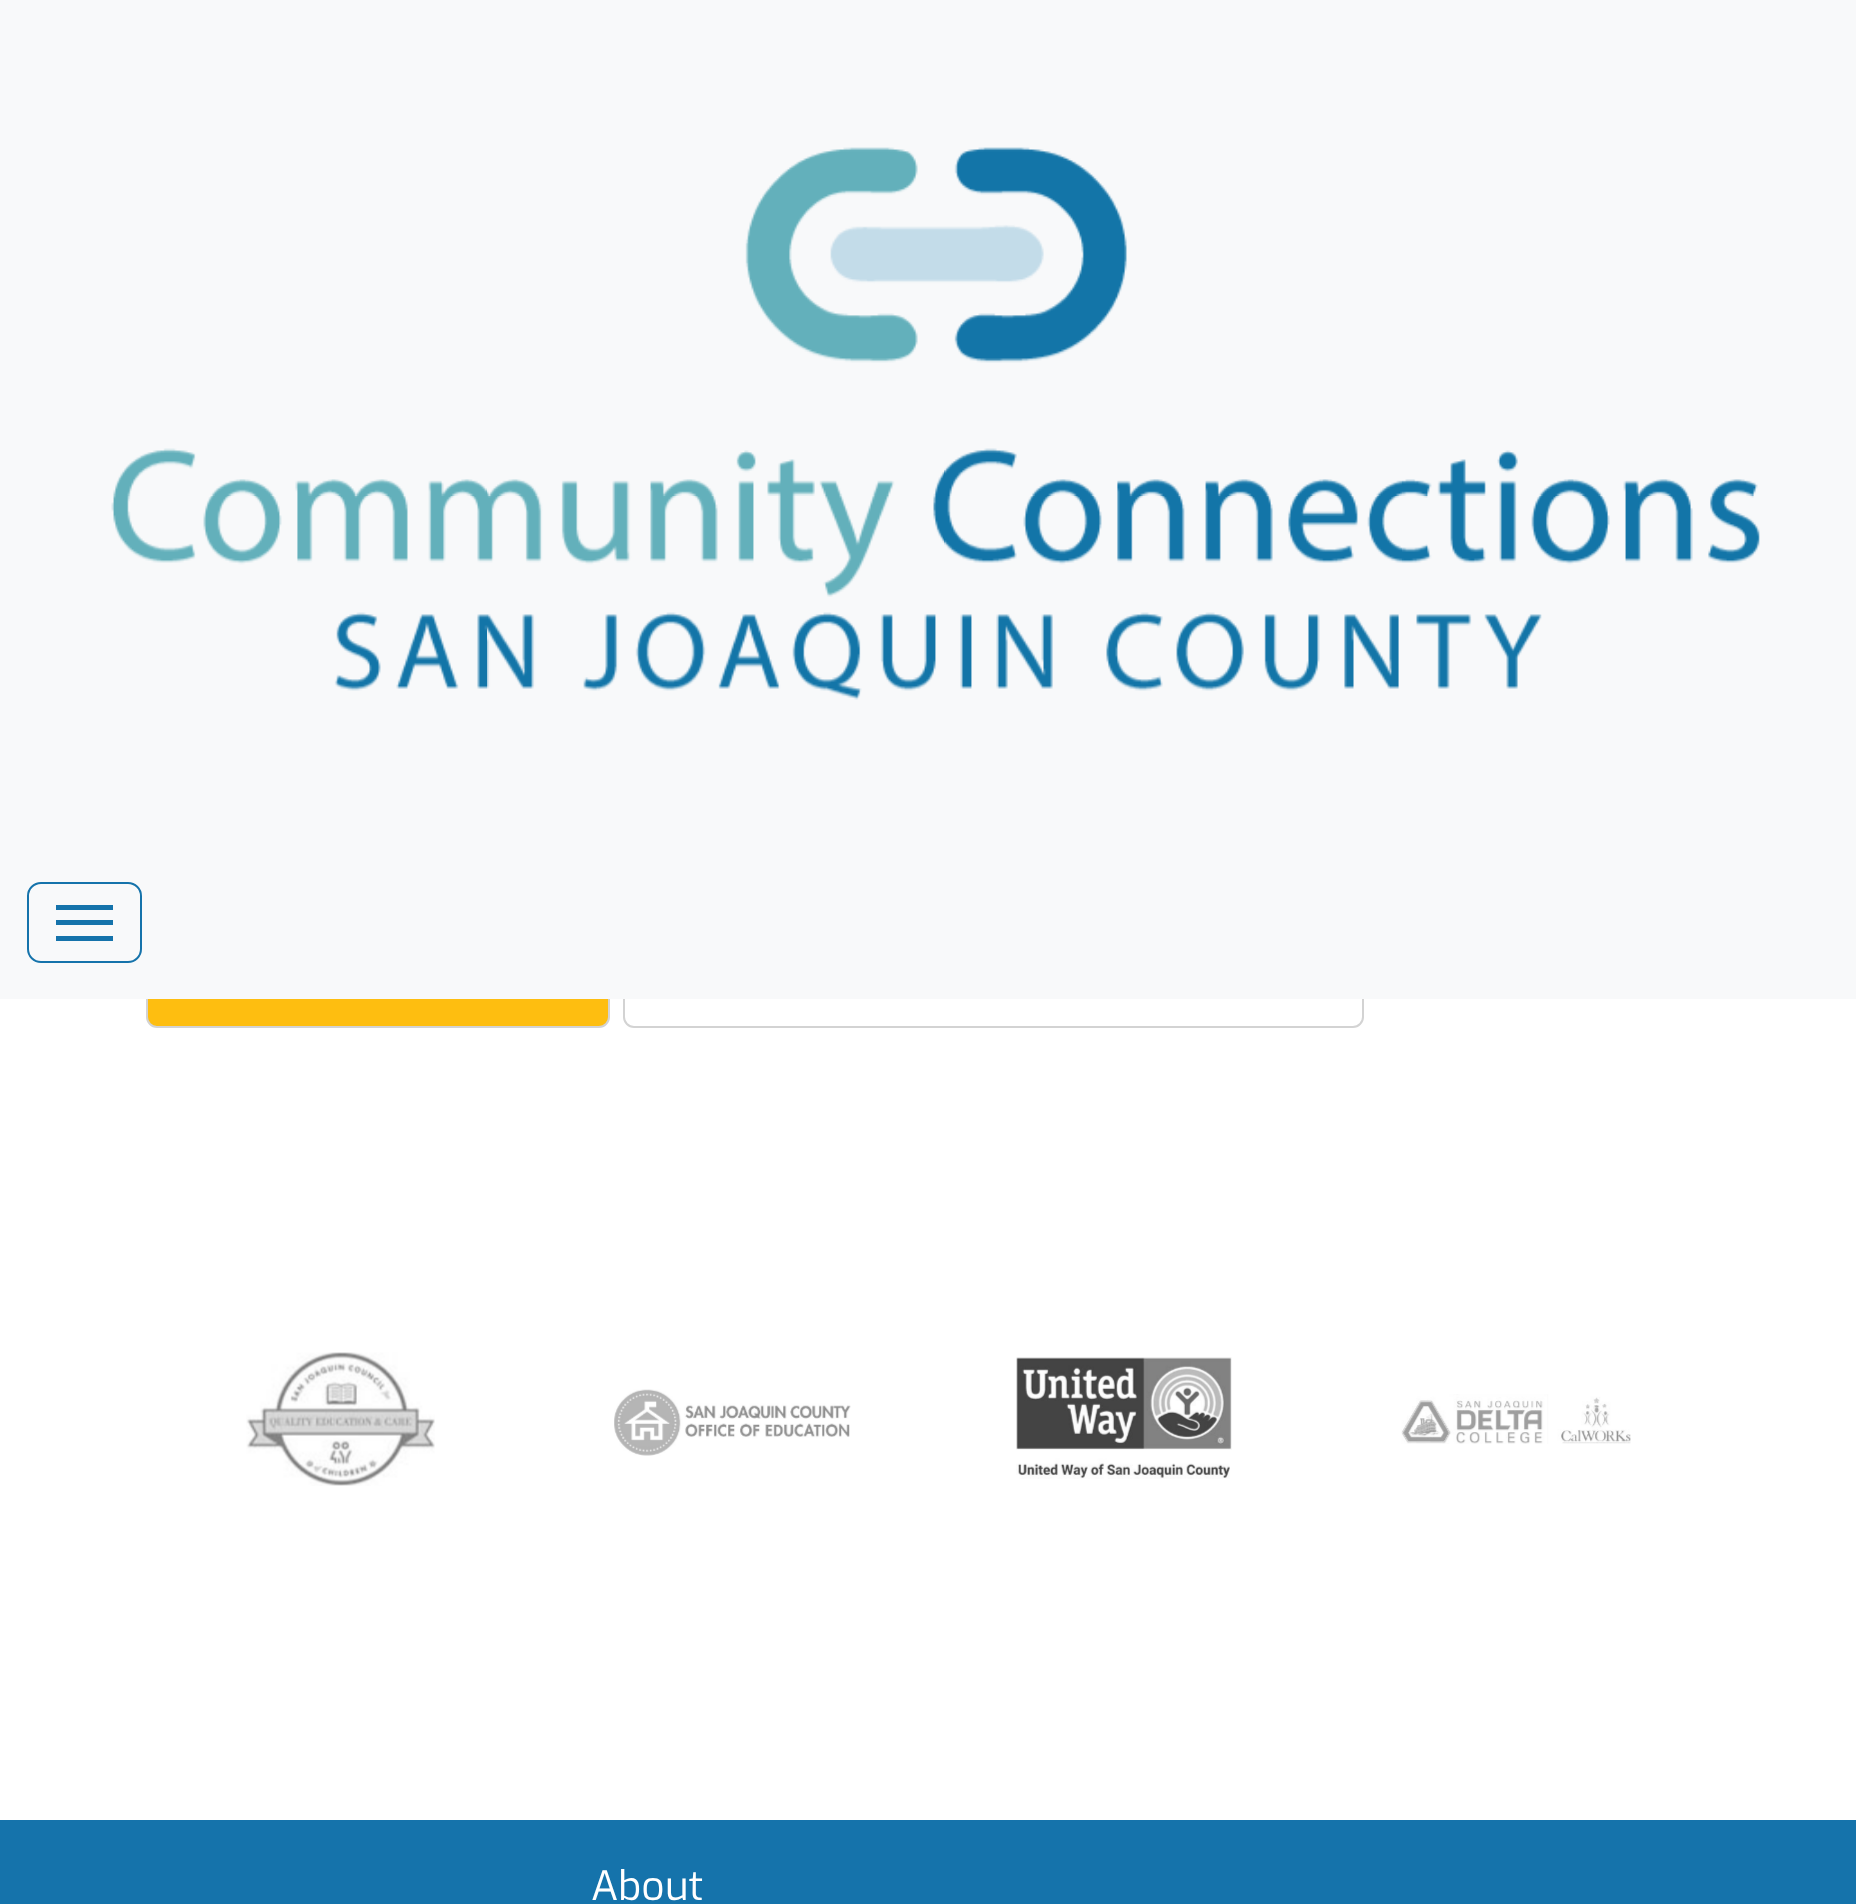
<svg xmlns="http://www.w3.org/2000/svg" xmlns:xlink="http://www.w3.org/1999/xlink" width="1856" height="1904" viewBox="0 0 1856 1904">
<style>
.cls-1{font:40.5px Exo;fill:#ffffff}
</style>
<rect width="100%" height="100%" fill="#ffffff"/>
<rect fill="#febe10" stroke="#d3d3d3" stroke-width="2" x="147" y="881" width="462" height="146" rx="10"/>
<rect fill="none" stroke="#d3d3d3" stroke-width="2" x="624" y="881" width="739" height="146" rx="10"/>
<rect fill="#f8f9fa" x="0" y="0" width="1856" height="999"/>
<image xlink:href="image0.png" x="111" y="147" width="1649" height="553"/>
<rect fill="none" stroke="#1573ab" stroke-width="2" x="28" y="883" width="113" height="79" rx="13"/>
<rect fill="#1573ab" x="56" y="905" width="57" height="5"/>
<rect fill="#1573ab" x="56" y="920" width="57" height="5"/>
<rect fill="#1573ab" x="56" y="936" width="57" height="5"/>
<image xlink:href="image1.png" x="246" y="1352" width="189" height="134"/>
<image xlink:href="image2.png" x="614" y="1389" width="237" height="67"/>
<image xlink:href="image3.png" x="1016" y="1357" width="216" height="122"/>
<image xlink:href="image4.png" x="1401" y="1394" width="230" height="50"/>
<rect fill="#1573ab" x="0" y="1820" width="1856" height="84"/>
<text class="cls-1" x="591" y="1900">About</text>
</svg>
